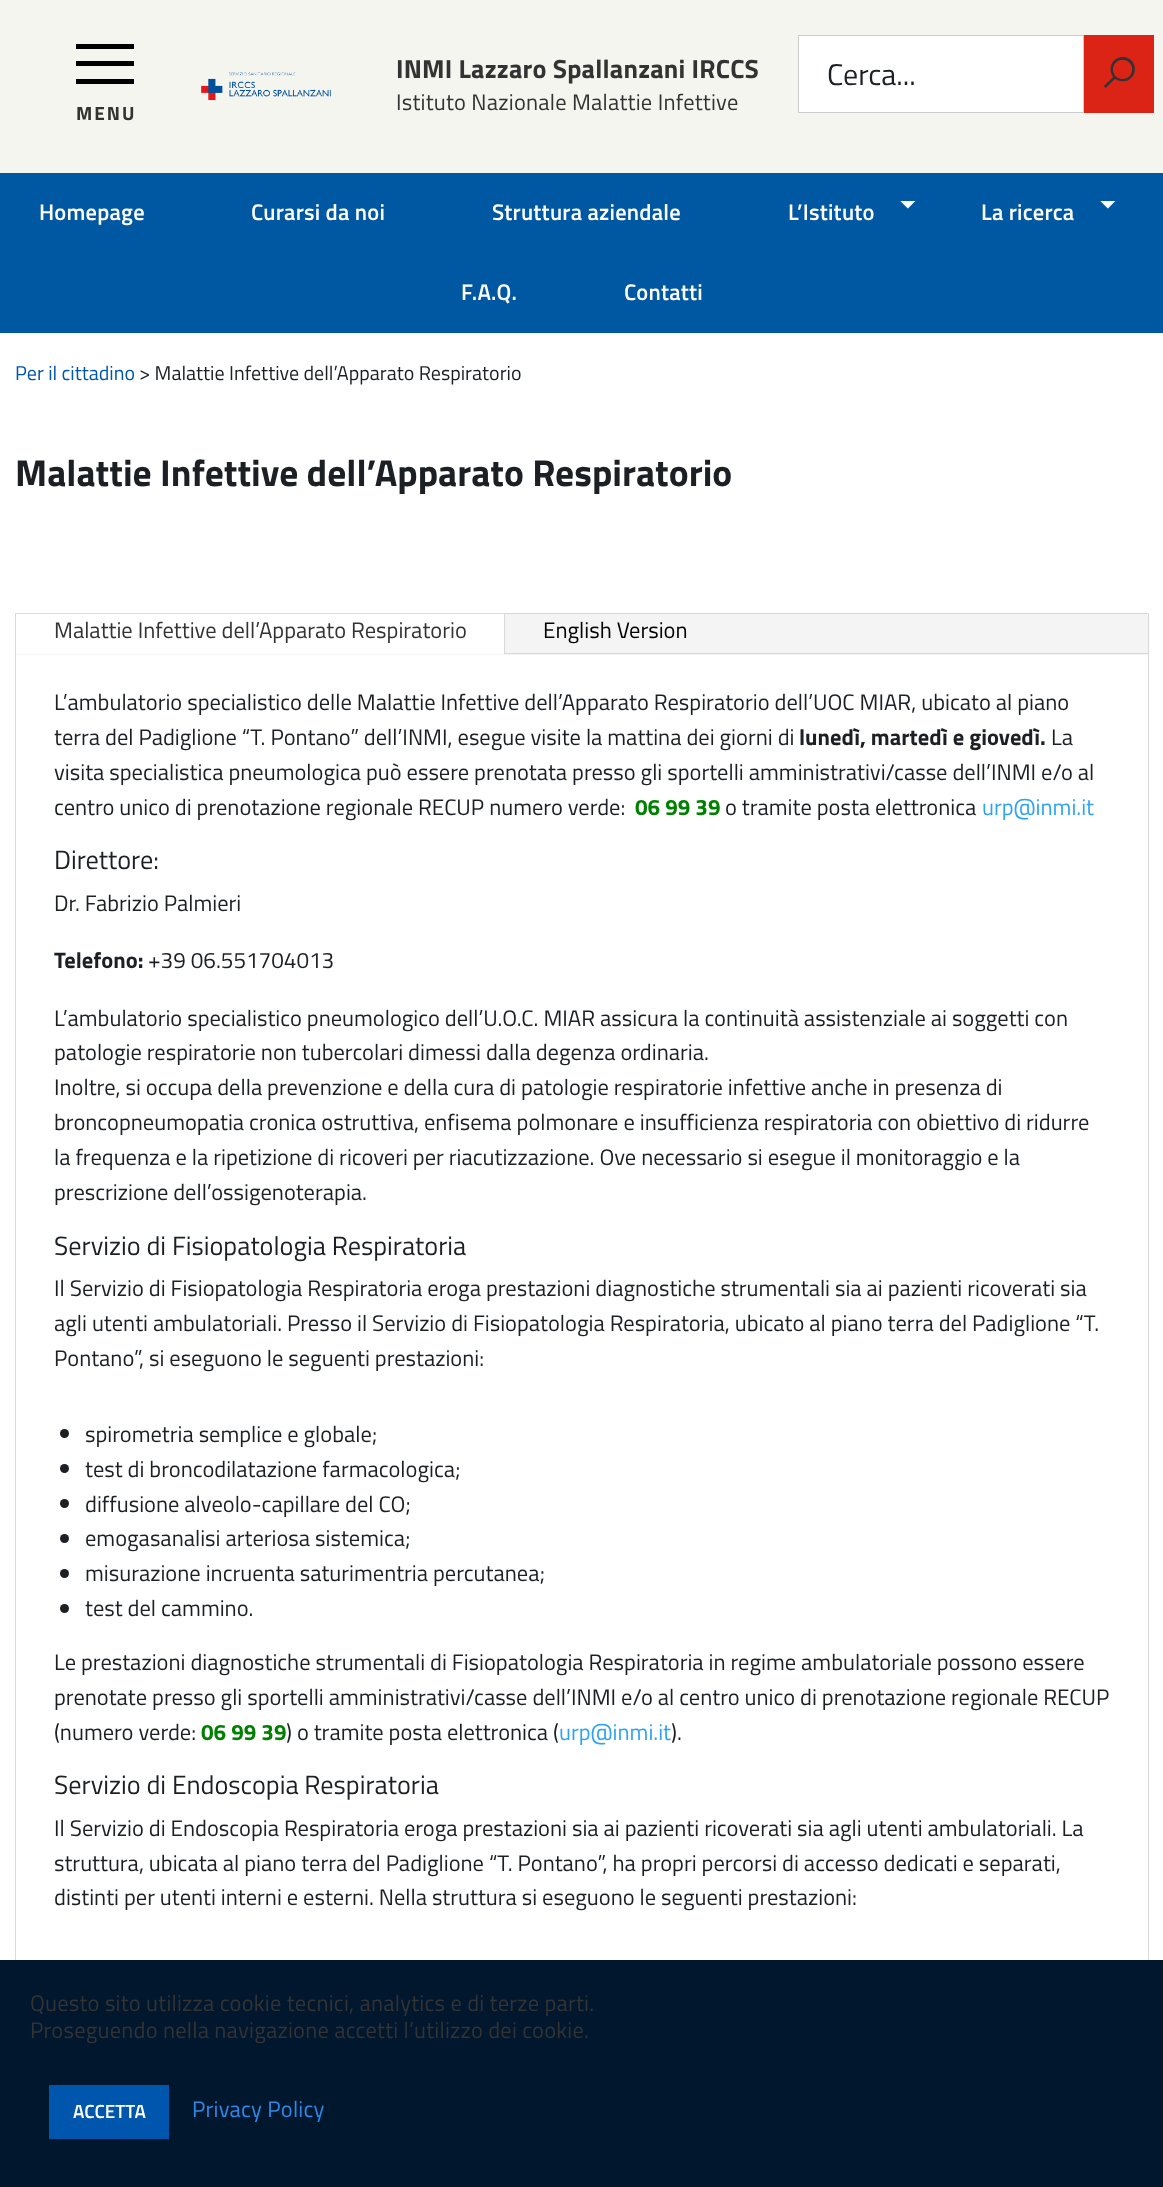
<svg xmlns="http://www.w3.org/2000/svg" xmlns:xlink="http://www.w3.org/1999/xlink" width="1163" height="2187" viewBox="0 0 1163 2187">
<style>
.cls-1{font:bold 26.25px Titillium Web;letter-spacing:0.2px;fill:#333333}
.cls-2{font:22.5px Titillium Web;letter-spacing:0.22px;fill:#333333}
.cls-3{font:bold 30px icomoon;fill:#333333}
.cls-4{font:30px Titillium Web;fill:#1c2024}
.cls-5{font:bold 19px Titillium Web;letter-spacing:2px;fill:#333333}
.cls-6{font:600 22.5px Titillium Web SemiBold;letter-spacing:0.22px;fill:#ffffff}
.cls-7{font:bold 19px FreeSans;letter-spacing:0.22px;fill:#ffffff}
.cls-8{font:20px Titillium Web;fill:#0056ac}
.cls-9{font:20px Titillium Web;fill:#1c2024}
.cls-10{font:bold 37.5px Titillium Web;fill:#1c2024}
.cls-11{font:22.5px Titillium Web;fill:#333333}
.cls-12{font:22.5px Titillium Web;fill:#000000}
.cls-13{font:22.5px Titillium Web;fill:#1c2024}
.cls-14{font:bold 22.5px Titillium Web;fill:#1c2024}
.cls-15{font:bold 22.5px Titillium Web;fill:#008000}
.cls-16{font:22.5px Titillium Web;fill:#2ea3f2}
.cls-17{font:26.3px Titillium Web;fill:#1c2024}
.cls-18{font:600 19px Titillium Web SemiBold;fill:#ffffff}
.cls-19{font:22.5px Titillium Web;letter-spacing:0.22px;fill:#2c8ae8}
</style>
<rect width="100%" height="100%" fill="#ffffff"/>
<rect fill="#f5f5f0" x="0" y="0" width="1163" height="173"/>
<image xlink:href="image0.png" x="201" y="72" width="130" height="29"/>
<rect fill="#ffffff" stroke="#cccccc" x="798.5" y="35.5" width="285" height="77"/>
<rect fill="#db2316" x="1084" y="35" width="70" height="78"/>
<rect fill="#000000" x="76" y="61" width="58" height="5"/>
<rect fill="#000000" x="76" y="44" width="58" height="5"/>
<rect fill="#000000" x="76" y="79" width="58" height="5"/>
<rect fill="#0058a3" x="0" y="173" width="1163" height="160"/>
<rect fill="none" stroke="#d9d9d9" x="15.5" y="613.5" width="1133" height="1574"/>
<rect fill="#f4f4f4" x="16" y="614" width="1132" height="41"/>
<rect fill="#ffffff" x="16" y="614" width="488" height="40"/>
<rect fill="#d9d9d9" x="504" y="614" width="1" height="40"/>
<rect fill="#d9d9d9" x="505" y="653" width="643" height="1"/>
<circle fill="#1c2024" cx="64.5" cy="1433.5" r="4.5"/>
<circle fill="#1c2024" cx="64.5" cy="1468.5" r="4.5"/>
<circle fill="#1c2024" cx="64.5" cy="1503.5" r="4.5"/>
<circle fill="#1c2024" cx="64.5" cy="1538.5" r="4.5"/>
<circle fill="#1c2024" cx="64.5" cy="1573.5" r="4.5"/>
<circle fill="#1c2024" cx="64.5" cy="1608.5" r="4.5"/>
<rect fill="#00172e" x="0" y="1960" width="1163" height="227"/>
<rect fill="#0056ac" x="49" y="2085" width="120" height="54"/>
<text class="cls-1" x="396" y="78">INMI Lazzaro Spallanzani IRCCS</text>
<text class="cls-2" x="396" y="110">Istituto Nazionale Malattie Infettive</text>
<text class="cls-3" x="1104" y="86">🔍</text>
<text class="cls-4" x="827" y="85">Cerca...</text>
<text class="cls-5" x="76" y="120">MENU</text>
<text class="cls-6" x="39" y="220">Homepage</text>
<text class="cls-6" x="251" y="220">Curarsi da noi</text>
<text class="cls-6" x="492" y="220">Struttura aziendale</text>
<text class="cls-6" x="788" y="220">L’Istituto</text>
<text class="cls-7" x="900" y="211">⏷</text>
<text class="cls-6" x="981" y="220">La ricerca</text>
<text class="cls-7" x="1100" y="211">⏷</text>
<text class="cls-6" x="461" y="300">F.A.Q.</text>
<text class="cls-6" x="624" y="300">Contatti</text>
<text class="cls-8" x="15" y="380">Per il cittadino</text>
<text class="cls-9" x="139" y="380">&gt; Malattie Infettive dell’Apparato Respiratorio</text>
<text class="cls-10" x="15" y="486">Malattie Infettive dell’Apparato Respiratorio</text>
<text class="cls-11" x="54" y="638">Malattie Infettive dell’Apparato Respiratorio</text>
<text class="cls-12" x="543" y="638">English Version</text>
<text class="cls-13"><tspan x="54" y="710">L’ambulatorio specialistico delle Malattie Infettive dell’Apparato Respiratorio dell’UOC MIAR, ubicato al piano</tspan><tspan x="54" y="745">terra del Padiglione “T. Pontano” dell’INMI, esegue visite la mattina dei giorni di</tspan></text>
<text class="cls-14" x="799" y="745">lunedì, martedì e giovedì.</text>
<text class="cls-13" x="1051" y="745">La</text>
<text class="cls-13"><tspan x="54" y="780">visita specialistica pneumologica può essere prenotata presso gli sportelli amministrativi/casse dell’INMI e/o al</tspan><tspan x="54" y="815">centro unico di prenotazione regionale RECUP numero verde:</tspan></text>
<text class="cls-15" x="635" y="815">06 99 39</text>
<text class="cls-13" x="725" y="815">o tramite posta elettronica</text>
<text class="cls-16" x="982" y="815">urp@inmi.it</text>
<text class="cls-17" x="54" y="869">Direttore:</text>
<text class="cls-13" x="54" y="911">Dr. Fabrizio Palmieri</text>
<text class="cls-14" x="54" y="968">Telefono:</text>
<text class="cls-13" x="148" y="968">+39 06.551704013</text>
<text class="cls-13"><tspan x="54" y="1026">L’ambulatorio specialistico pneumologico dell’U.O.C. MIAR assicura la continuità assistenziale ai soggetti con</tspan><tspan x="54" y="1060">patologie respiratorie non tubercolari dimessi dalla degenza ordinaria.</tspan><tspan x="54" y="1095">Inoltre, si occupa della prevenzione e della cura di patologie respiratorie infettive anche in presenza di</tspan><tspan x="54" y="1130">broncopneumopatia cronica ostruttiva, enfisema polmonare e insufficienza respiratoria con obiettivo di ridurre</tspan><tspan x="54" y="1165">la frequenza e la ripetizione di ricoveri per riacutizzazione. Ove necessario si esegue il monitoraggio e la</tspan><tspan x="54" y="1200">prescrizione dell’ossigenoterapia.</tspan></text>
<text class="cls-17" x="54" y="1255">Servizio di Fisiopatologia Respiratoria</text>
<text class="cls-13"><tspan x="54" y="1296">Il Servizio di Fisiopatologia Respiratoria eroga prestazioni diagnostiche strumentali sia ai pazienti ricoverati sia</tspan><tspan x="54" y="1331">agli utenti ambulatoriali. Presso il Servizio di Fisiopatologia Respiratoria, ubicato al piano terra del Padiglione “T.</tspan><tspan x="54" y="1366">Pontano”, si eseguono le seguenti prestazioni:</tspan></text>
<text class="cls-13"><tspan x="85" y="1442">spirometria semplice e globale;</tspan><tspan x="85" y="1477">test di broncodilatazione farmacologica;</tspan><tspan x="85" y="1512">diffusione alveolo-capillare del CO;</tspan><tspan x="85" y="1546">emogasanalisi arteriosa sistemica;</tspan><tspan x="85" y="1581">misurazione incruenta saturimentria percutanea;</tspan><tspan x="85" y="1616">test del cammino.</tspan></text>
<text class="cls-13"><tspan x="54" y="1670">Le prestazioni diagnostiche strumentali di Fisiopatologia Respiratoria in regime ambulatoriale possono essere</tspan><tspan x="54" y="1705">prenotate presso gli sportelli amministrativi/casse dell’INMI e/o al centro unico di prenotazione regionale RECUP</tspan><tspan x="54" y="1740">(numero verde:</tspan></text>
<text class="cls-15" x="201" y="1740">06 99 39</text>
<text class="cls-13" x="286" y="1740">) o tramite posta elettronica (</text>
<text class="cls-16" x="559" y="1740">urp@inmi.it</text>
<text class="cls-13" x="671" y="1740">).</text>
<text class="cls-17" x="54" y="1794">Servizio di Endoscopia Respiratoria</text>
<text class="cls-13"><tspan x="54" y="1836">Il Servizio di Endoscopia Respiratoria eroga prestazioni sia ai pazienti ricoverati sia agli utenti ambulatoriali. La</tspan><tspan x="54" y="1871">struttura, ubicata al piano terra del Padiglione “T. Pontano”, ha propri percorsi di accesso dedicati e separati,</tspan><tspan x="54" y="1905">distinti per utenti interni e esterni. Nella struttura si eseguono le seguenti prestazioni:</tspan></text>
<text class="cls-2"><tspan x="30" y="2011">Questo sito utilizza cookie tecnici, analytics e di terze parti.</tspan><tspan x="30" y="2038">Proseguendo nella navigazione accetti l’utilizzo dei cookie.</tspan></text>
<text class="cls-18" x="73" y="2118">ACCETTA</text>
<text class="cls-19" x="192" y="2117">Privacy Policy</text>
</svg>
